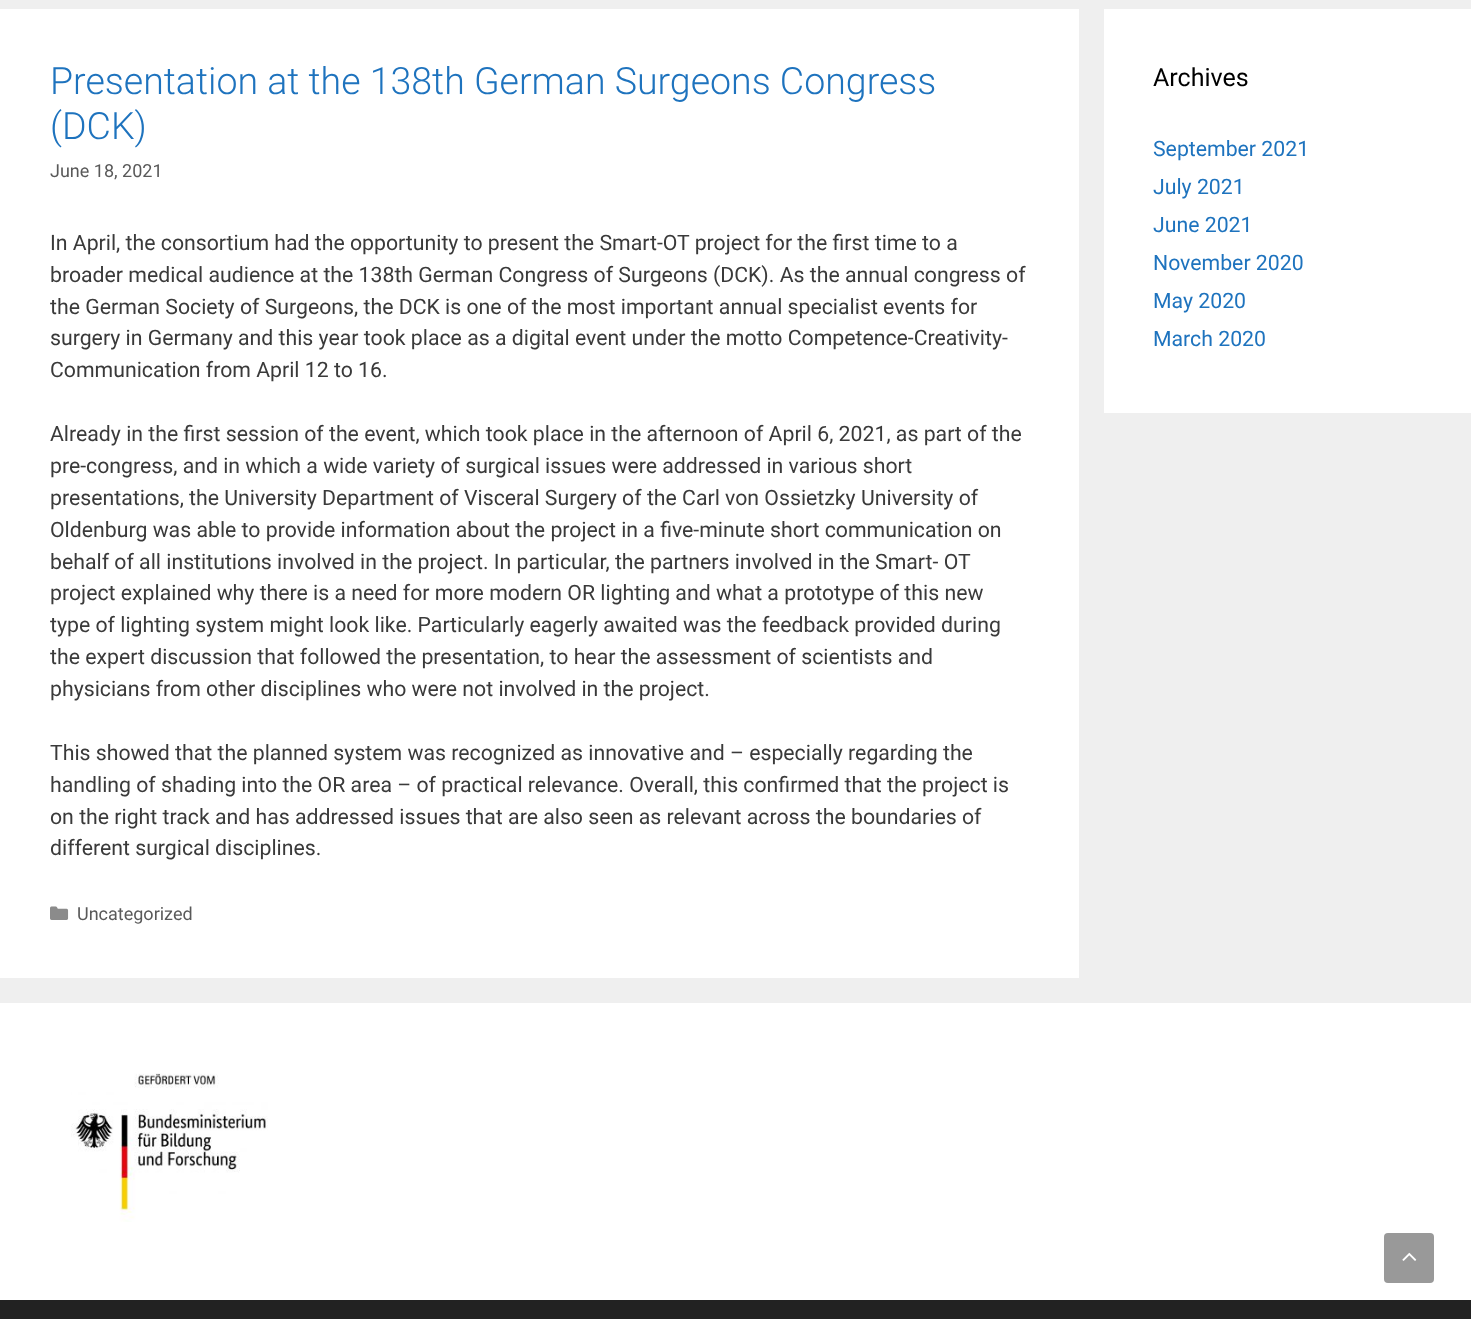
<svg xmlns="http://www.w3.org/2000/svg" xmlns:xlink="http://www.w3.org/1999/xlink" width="1471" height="1319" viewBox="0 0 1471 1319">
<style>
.cls-1{font:300 37.5px Roboto;fill:#1e73be}
.cls-2{font:18px Roboto;fill:#595959}
.cls-3{font:21.25px Roboto;fill:#3a3a3a}
.cls-4{font:25px Roboto;fill:#000000}
.cls-5{font:21.25px Roboto;fill:#1e73be}
</style>
<rect width="100%" height="100%" fill="#efefef"/>
<rect fill="#ffffff" x="0" y="9" width="1079" height="969"/>
<image xlink:href="image0.png" x="50" y="906" width="19" height="14"/>
<rect fill="#ffffff" x="1104" y="9" width="367" height="404"/>
<rect fill="#ffffff" x="0" y="1003" width="1471" height="297"/>
<image xlink:href="image1.png" x="71" y="1073" width="197" height="149"/>
<rect fill="#222222" x="0" y="1300" width="1471" height="19"/>
<rect fill="#999999" x="1384" y="1233" width="50" height="50" rx="4"/>
<image xlink:href="image2.png" x="1402" y="1252" width="15" height="9"/>
<text class="cls-1"><tspan x="50" y="94">Presentation at the 138th German Surgeons Congress</tspan><tspan x="50" y="139">(DCK)</tspan></text>
<text class="cls-2" x="50" y="177">June 18, 2021</text>
<text class="cls-3"><tspan x="50" y="250">In April, the consortium had the opportunity to present the Smart-OT project for the first time to a</tspan><tspan x="50" y="282">broader medical audience at the 138th German Congress of Surgeons (DCK). As the annual congress of</tspan><tspan x="50" y="314">the German Society of Surgeons, the DCK is one of the most important annual specialist events for</tspan><tspan x="50" y="345">surgery in Germany and this year took place as a digital event under the motto Competence-Creativity-</tspan><tspan x="50" y="377">Communication from April 12 to 16.</tspan></text>
<text class="cls-3"><tspan x="50" y="441">Already in the first session of the event, which took place in the afternoon of April 6, 2021, as part of the</tspan><tspan x="50" y="473">pre-congress, and in which a wide variety of surgical issues were addressed in various short</tspan><tspan x="50" y="505">presentations, the University Department of Visceral Surgery of the Carl von Ossietzky University of</tspan><tspan x="50" y="537">Oldenburg was able to provide information about the project in a five-minute short communication on</tspan><tspan x="50" y="569">behalf of all institutions involved in the project. In particular, the partners involved in the Smart- OT</tspan><tspan x="50" y="600">project explained why there is a need for more modern OR lighting and what a prototype of this new</tspan><tspan x="50" y="632">type of lighting system might look like. Particularly eagerly awaited was the feedback provided during</tspan><tspan x="50" y="664">the expert discussion that followed the presentation, to hear the assessment of scientists and</tspan><tspan x="50" y="696">physicians from other disciplines who were not involved in the project.</tspan></text>
<text class="cls-3"><tspan x="50" y="760">This showed that the planned system was recognized as innovative and – especially regarding the</tspan><tspan x="50" y="792">handling of shading into the OR area – of practical relevance. Overall, this confirmed that the project is</tspan><tspan x="50" y="824">on the right track and has addressed issues that are also seen as relevant across the boundaries of</tspan><tspan x="50" y="855">different surgical disciplines.</tspan></text>
<text class="cls-2" x="77" y="920">Uncategorized</text>
<text class="cls-4" x="1153" y="86">Archives</text>
<text class="cls-5"><tspan x="1153" y="156">September 2021</tspan><tspan x="1153" y="194">July 2021</tspan><tspan x="1153" y="232">June 2021</tspan><tspan x="1153" y="270">November 2020</tspan><tspan x="1153" y="308">May 2020</tspan><tspan x="1153" y="346">March 2020</tspan></text>
</svg>
